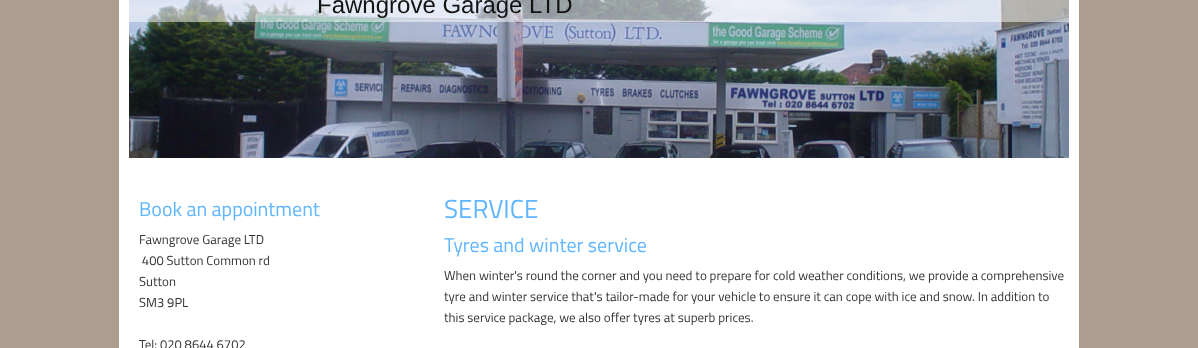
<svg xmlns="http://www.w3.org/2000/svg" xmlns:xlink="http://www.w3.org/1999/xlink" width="1198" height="348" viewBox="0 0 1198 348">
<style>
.cls-1{font:24px Liberation Sans;fill:#141313}
.cls-2{font:20px Titillium Web;fill:#60b6ff}
.cls-3{font:13px Titillium Web;fill:#333333}
.cls-4{font:26px Titillium Web;fill:#60b6ff}
</style>
<rect width="100%" height="100%" fill="#ab9e90"/>
<rect fill="#ffffff" x="119" y="0" width="960" height="348"/>
<image xlink:href="image0.png" x="129" y="0" width="940" height="158"/>
<rect fill="#ffffff" fill-opacity="0.5" x="129" y="0" width="940" height="22"/>
<text class="cls-1" x="317" y="13">Fawngrove Garage LTD</text>
<text class="cls-2" x="139" y="216">Book an appointment</text>
<text class="cls-3"><tspan x="139" y="244">Fawngrove Garage LTD</tspan><tspan x="139" y="265"> 400 Sutton Common rd</tspan><tspan x="139" y="286">Sutton</tspan><tspan x="139" y="307">SM3 9PL</tspan></text>
<text class="cls-3" x="139" y="349">Tel: 020 8644 6702</text>
<text class="cls-4" x="444" y="218">SERVICE</text>
<text class="cls-2" x="444" y="252">Tyres and winter service</text>
<text class="cls-3"><tspan x="444" y="280">When winter's round the corner and you need to prepare for cold weather conditions, we provide a comprehensive</tspan><tspan x="444" y="301">tyre and winter service that's tailor-made for your vehicle to ensure it can cope with ice and snow. In addition to</tspan><tspan x="444" y="322">this service package, we also offer tyres at superb prices.</tspan></text>
</svg>
